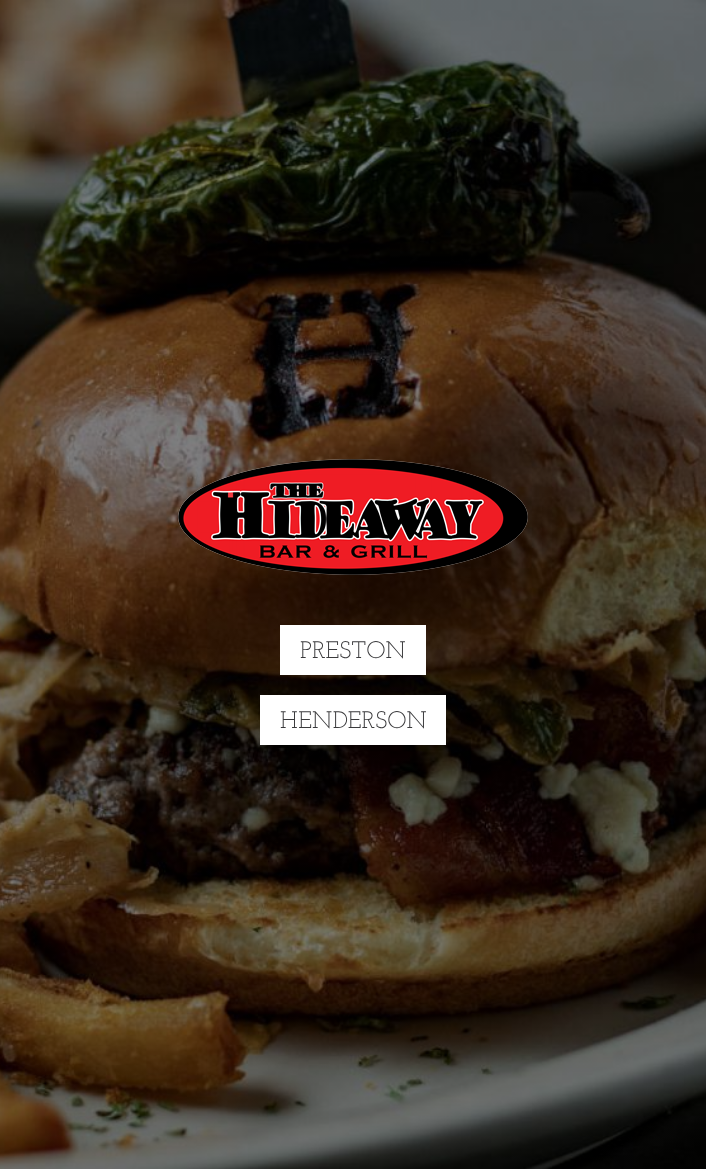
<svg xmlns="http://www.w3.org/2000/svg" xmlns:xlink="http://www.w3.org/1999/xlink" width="706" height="1169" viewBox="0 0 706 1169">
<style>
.cls-1{font:100 24px Josefin Slab;fill:#3a3a3c}
</style>
<rect width="100%" height="100%" fill="#ffffff"/>
<image xlink:href="image0.png" x="0" y="0" width="706" height="1169"/>
<image xlink:href="image1.png" x="178" y="459" width="350" height="116"/>
<rect fill="#ffffff" x="280" y="625" width="146" height="50"/>
<rect fill="#ffffff" x="260" y="695" width="186" height="50"/>
<text class="cls-1" x="300" y="658">PRESTON</text>
<text class="cls-1" x="280" y="728">HENDERSON</text>
</svg>
